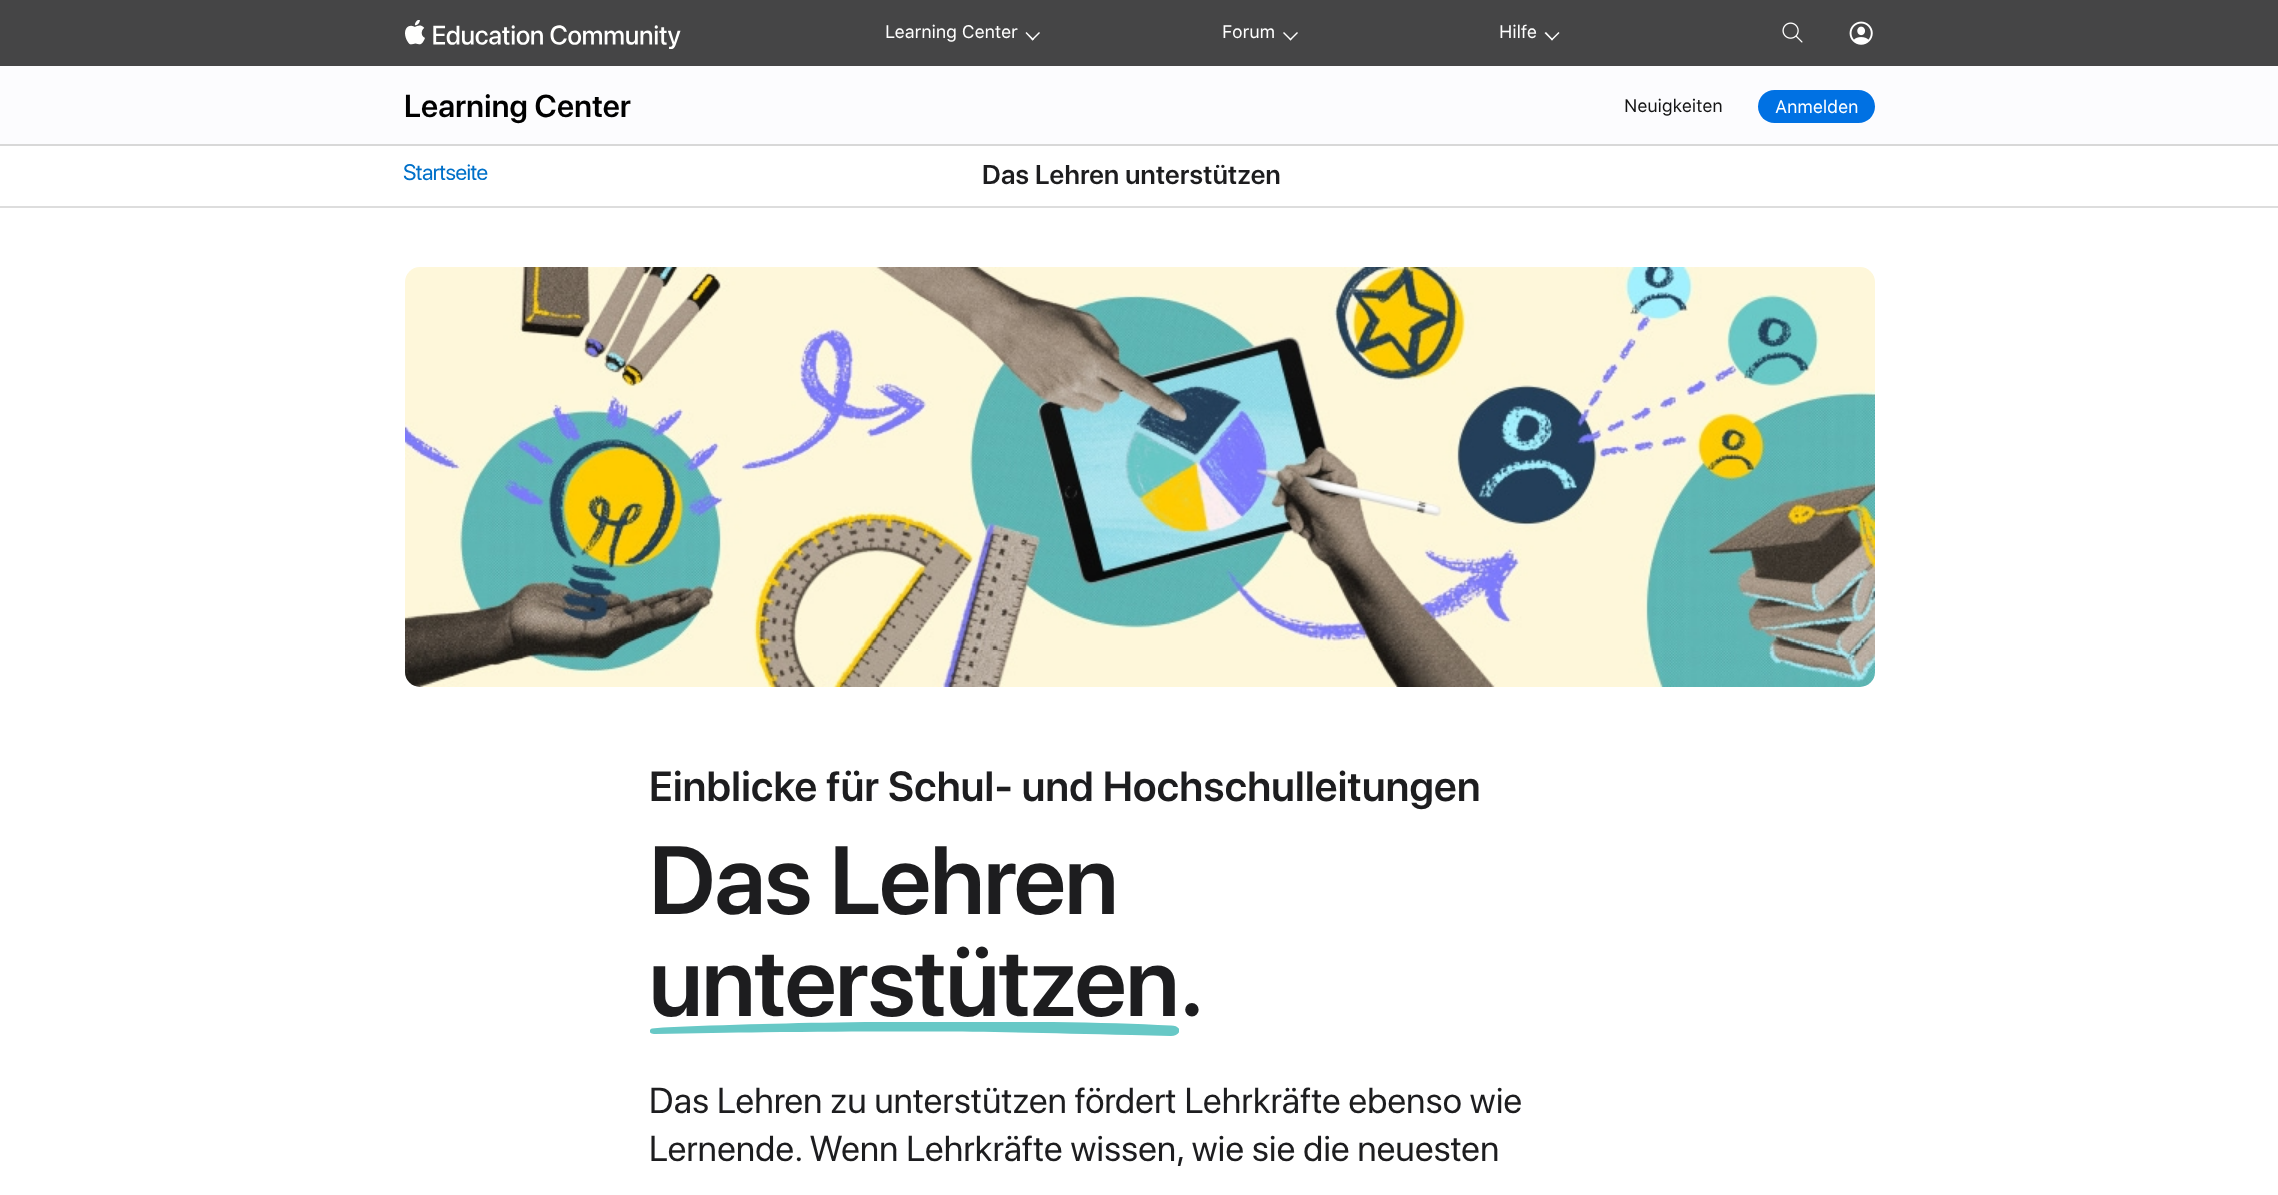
<svg xmlns="http://www.w3.org/2000/svg" xmlns:xlink="http://www.w3.org/1999/xlink" width="2278" height="1195" viewBox="0 0 2278 1195">
<style>
.cls-1{font:18px SF Pro Text;letter-spacing:-0.2px;fill:#ffffff}
.cls-2{font:600 31.5px 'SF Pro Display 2';letter-spacing:0.3px;fill:#000000}
.cls-3{font:18px SF Pro Text;letter-spacing:-0.2px;fill:#141414}
.cls-4{font:22.5px SF Pro Display;letter-spacing:-0.5px;fill:#0070c9}
.cls-5{font:600 27px SF Pro Display;letter-spacing:0.32px;fill:#1d1d1f}
.cls-6{font:600 42px 'SF Pro Display 2';letter-spacing:0.3px;fill:#1d1d1f}
.cls-7{font:600 96px 'SF Pro Display 2';letter-spacing:-0.9px;fill:#1d1d1f}
.cls-8{font:36px 'SF Pro Display 2';letter-spacing:0.32px;fill:#1d1d1f}
</style>
<defs>
<clipPath id="clip1"><rect x="650" y="1022" width="529" height="18"/></clipPath>
<clipPath id="clip2"><path d="M1170.5 1025.5H1171C1175.5 1025.5 1179.5 1027.5 1179.5 1030.5C1179.5 1033.5 1175.5 1036 1171 1036L1131.5 1035C1050.5 1033 984.5 1031.5 932 1031.5H896C837 1031.5 756.5 1032 655 1034H654C651.5 1034 649.5 1032.5 649.5 1031C649.5 1030 650.5 1029 652 1028.5L663 1027.5C724.5 1024.5 806.5 1022.5 909 1021.5H976.5C1056 1021.5 1120.5 1023 1170.5 1025.5Z"/></clipPath>
</defs>
<rect width="100%" height="100%" fill="#ffffff"/>
<rect fill="#454546" x="0" y="0" width="2278" height="66"/>
<image xlink:href="image0.png" x="405" y="20" width="276" height="29"/>
<path fill="#ffffff" d="M1039 32L1040 33L1032.5 40.5L1031.5 39.5Z"/>
<path fill="#ffffff" d="M1026.5 32L1034 39.5L1032.5 40.5L1025.5 33Z"/>
<path fill="#ffffff" d="M1297 32L1298 33L1290.5 40.5L1289.5 39.5Z"/>
<path fill="#ffffff" d="M1284 32L1291.5 39.5L1290.5 40.5L1283 33Z"/>
<path fill="#ffffff" d="M1558.5 32L1559.5 33L1552 40.5L1551 39.5Z"/>
<path fill="#ffffff" d="M1546 32L1553 39.5L1552 40.5L1544.5 33Z"/>
<image xlink:href="image1.png" x="1782" y="22" width="21" height="21"/>
<image xlink:href="image2.png" x="1849" y="21" width="24" height="24"/>
<rect fill="#fcfcfe" x="0" y="66" width="2278" height="78"/>
<rect fill="#d8d8d8" x="0" y="144" width="2278" height="2"/>
<rect fill="#0071e3" x="1758" y="90" width="117" height="33" rx="16.5"/>
<rect fill="#dddddd" x="0" y="206" width="2278" height="2"/>
<image xlink:href="image3.png" x="405" y="267" width="1470" height="420"/>
<g clip-path="url(#clip1)">
<g clip-path="url(#clip2)">
<path fill="none" stroke="#67c8c6" stroke-width="24.1" stroke-linecap="round" d="M662 1031.5C865 1027.5 1203 1030.5 1212 1030.5"/>
</g>
</g>
<text class="cls-1" x="885" y="38">Learning Center</text>
<text class="cls-1" x="1222" y="38">Forum</text>
<text class="cls-1" x="1499" y="38">Hilfe</text>
<text class="cls-2" x="404" y="117">Learning Center</text>
<text class="cls-3" x="1624" y="112">Neuigkeiten</text>
<text class="cls-1" x="1775" y="113">Anmelden</text>
<text class="cls-4" x="403" y="180">Startseite</text>
<text class="cls-5" x="982" y="184">Das Lehren unterstützen</text>
<text class="cls-6" x="649" y="801">Einblicke für Schul- und Hochschulleitungen</text>
<text class="cls-7"><tspan x="649" y="914">Das Lehren</tspan><tspan x="649" y="1016">unterstützen</tspan></text>
<text class="cls-7" x="1179" y="1016">.</text>
<text class="cls-8"><tspan x="649" y="1113">Das Lehren zu unterstützen fördert Lehrkräfte ebenso wie</tspan><tspan x="649" y="1161">Lernende. Wenn Lehrkräfte wissen, wie sie die neuesten</tspan></text>
</svg>
